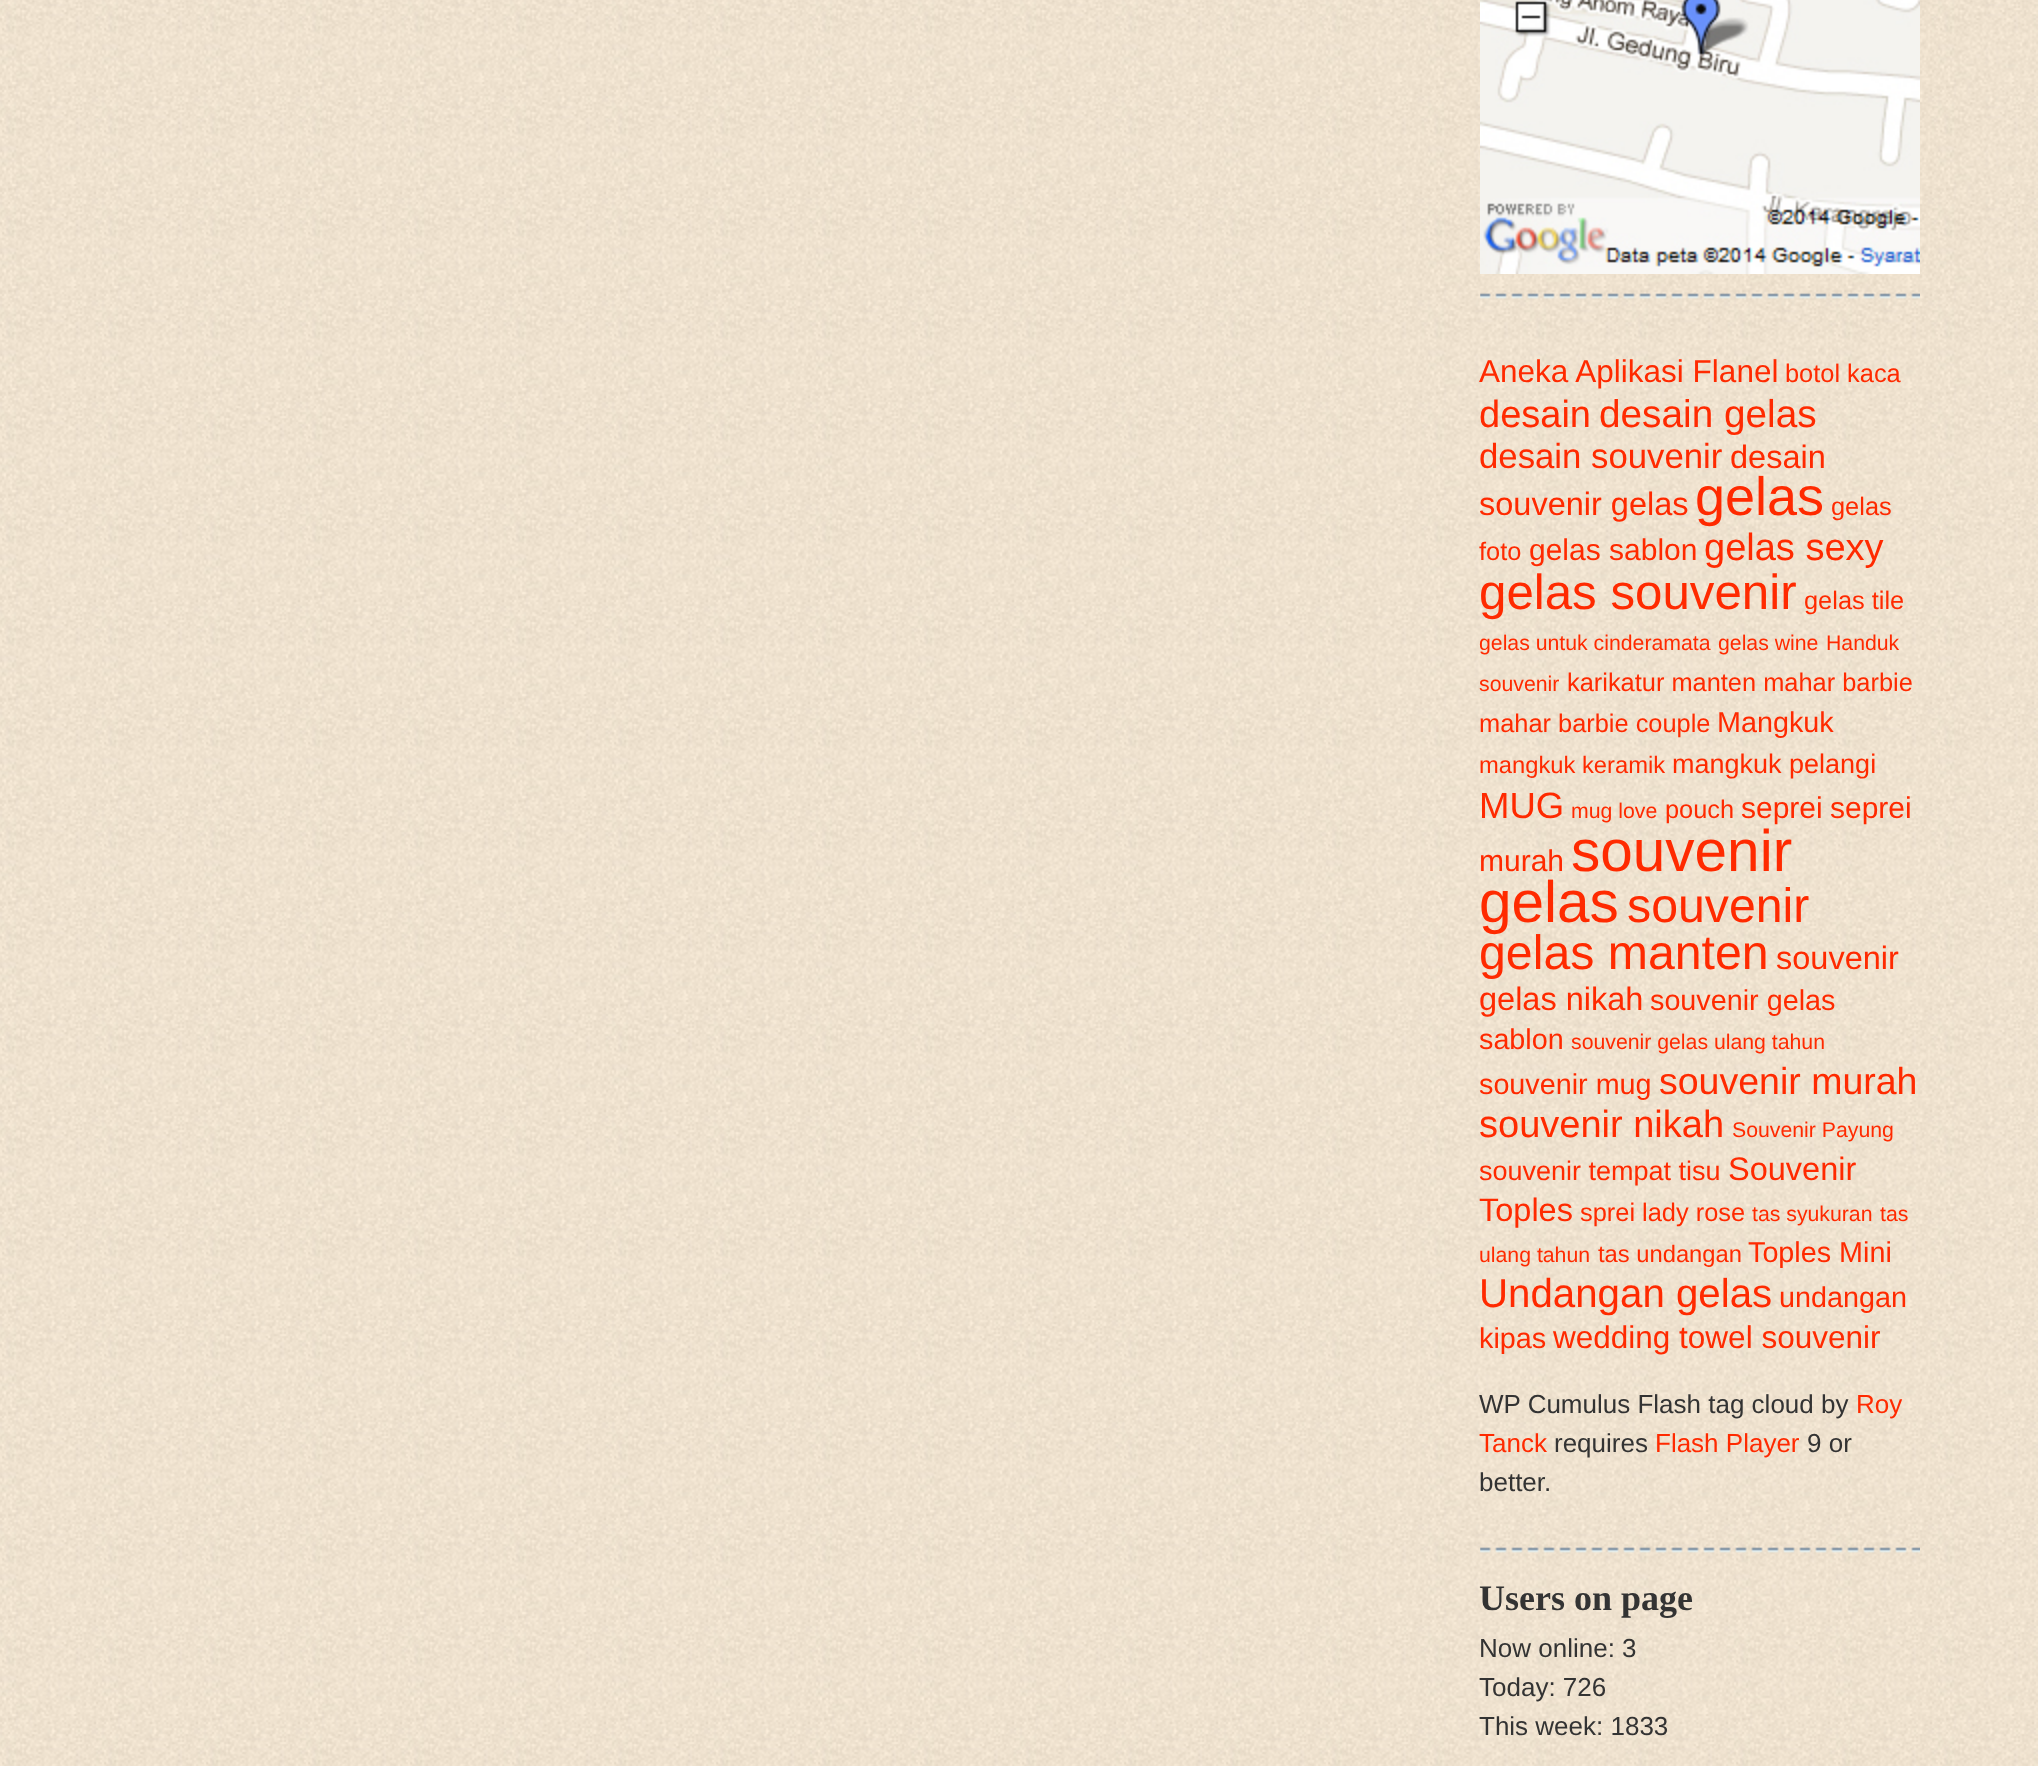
<svg xmlns="http://www.w3.org/2000/svg" xmlns:xlink="http://www.w3.org/1999/xlink" width="2038" height="1766" viewBox="0 0 2038 1766">
<style>
.cls-1{font:31.5px Liberation Sans;fill:#ff2a00}
.cls-2{font:25.4px Liberation Sans;fill:#ff2a00}
.cls-3{font:38px Liberation Sans;fill:#ff2a00}
.cls-4{font:38.75px Liberation Sans;fill:#ff2a00}
.cls-5{font:34.75px Liberation Sans;fill:#ff2a00}
.cls-6{font:32.5px Liberation Sans;fill:#ff2a00}
.cls-7{font:54px Liberation Sans;fill:#ff2a00}
.cls-8{font:30px Liberation Sans;fill:#ff2a00}
.cls-9{font:49.25px Liberation Sans;fill:#ff2a00}
.cls-10{font:21.25px Liberation Sans;fill:#ff2a00}
.cls-11{font:28.75px Liberation Sans;fill:#ff2a00}
.cls-12{font:23.75px Liberation Sans;fill:#ff2a00}
.cls-13{font:27px Liberation Sans;fill:#ff2a00}
.cls-14{font:36.5px Liberation Sans;fill:#ff2a00}
.cls-15{font:58.5px Liberation Sans;fill:#ff2a00}
.cls-16{font:48.25px Liberation Sans;fill:#ff2a00}
.cls-17{font:37.5px Liberation Sans;fill:#ff2a00}
.cls-18{font:40.25px Liberation Sans;fill:#ff2a00}
.cls-19{font:26px Liberation Sans;fill:#333333}
.cls-20{font:26px Liberation Sans;fill:#ff2a00}
.cls-21{font:bold 36px Liberation Serif;fill:#333333}
</style>
<rect width="100%" height="100%" fill="#ffffff"/>
<image xlink:href="image0.png" x="0" y="0" width="2038" height="1766"/>
<image xlink:href="image1.png" x="1480" y="293" width="440" height="6"/>
<image xlink:href="image2.png" x="1480" y="0" width="440" height="274"/>
<image xlink:href="image3.png" x="1480" y="1547" width="440" height="6"/>
<text class="cls-1" x="1479" y="382">Aneka Aplikasi Flanel</text>
<text class="cls-2" x="1785" y="382">botol kaca</text>
<text class="cls-3" x="1479" y="427">desain</text>
<text class="cls-4" x="1599" y="427">desain gelas</text>
<text class="cls-5" x="1479" y="468">desain souvenir</text>
<text class="cls-6" x="1730" y="468">desain</text>
<text class="cls-6" x="1479" y="515">souvenir gelas</text>
<text class="cls-7" x="1695" y="515">gelas</text>
<text class="cls-2" x="1831" y="515">gelas</text>
<text class="cls-2" x="1479" y="560">foto</text>
<text class="cls-8" x="1529" y="560">gelas sablon</text>
<text class="cls-3" x="1704" y="560">gelas sexy</text>
<text class="cls-9" x="1479" y="609">gelas souvenir</text>
<text class="cls-2" x="1804" y="609">gelas tile</text>
<text class="cls-10" x="1479" y="650">gelas untuk cinderamata</text>
<text class="cls-10" x="1718" y="650">gelas wine</text>
<text class="cls-10" x="1826" y="650">Handuk</text>
<text class="cls-10" x="1479" y="691">souvenir</text>
<text class="cls-2" x="1567" y="691">karikatur manten mahar barbie</text>
<text class="cls-2" x="1479" y="732">mahar barbie couple</text>
<text class="cls-11" x="1717" y="732">Mangkuk</text>
<text class="cls-12" x="1479" y="773">mangkuk keramik</text>
<text class="cls-13" x="1672" y="773">mangkuk pelangi</text>
<text class="cls-14" x="1479" y="818">MUG</text>
<text class="cls-10" x="1571" y="818">mug love</text>
<text class="cls-2" x="1665" y="818">pouch</text>
<text class="cls-8" x="1741" y="818">seprei</text>
<text class="cls-8" x="1830" y="818">seprei</text>
<text class="cls-8" x="1479" y="871">murah</text>
<text class="cls-15" x="1571" y="871">souvenir</text>
<text class="cls-15" x="1479" y="922">gelas</text>
<text class="cls-16" x="1627" y="922">souvenir</text>
<text class="cls-16" x="1479" y="969">gelas manten</text>
<text class="cls-6" x="1776" y="969">souvenir</text>
<text class="cls-6" x="1479" y="1010">gelas nikah</text>
<text class="cls-11" x="1650" y="1010">souvenir gelas</text>
<text class="cls-11" x="1479" y="1049">sablon</text>
<text class="cls-10" x="1571" y="1049">souvenir gelas ulang tahun</text>
<text class="cls-11" x="1479" y="1094">souvenir mug</text>
<text class="cls-17" x="1659" y="1094">souvenir murah</text>
<text class="cls-3" x="1479" y="1137">souvenir nikah</text>
<text class="cls-10" x="1732" y="1137">Souvenir Payung</text>
<text class="cls-13" x="1479" y="1180">souvenir tempat tisu</text>
<text class="cls-6" x="1728" y="1180">Souvenir</text>
<text class="cls-6" x="1479" y="1221">Toples</text>
<text class="cls-2" x="1580" y="1221">sprei lady rose</text>
<text class="cls-10" x="1752" y="1221">tas syukuran</text>
<text class="cls-10" x="1880" y="1221">tas</text>
<text class="cls-10" x="1479" y="1262">ulang tahun</text>
<text class="cls-12" x="1598" y="1262">tas undangan</text>
<text class="cls-11" x="1748" y="1262">Toples Mini</text>
<text class="cls-18" x="1479" y="1307">Undangan gelas</text>
<text class="cls-11" x="1779" y="1307">undangan</text>
<text class="cls-11" x="1479" y="1348">kipas</text>
<text class="cls-1" x="1553" y="1348">wedding towel souvenir</text>
<text class="cls-19" x="1479" y="1413">WP Cumulus Flash tag cloud by</text>
<text class="cls-20" x="1856" y="1413">Roy</text>
<text class="cls-20" x="1479" y="1452">Tanck</text>
<text class="cls-19" x="1554" y="1452">requires</text>
<text class="cls-20" x="1655" y="1452">Flash Player</text>
<text class="cls-19" x="1807" y="1452">9 or</text>
<text class="cls-19" x="1479" y="1491">better.</text>
<text class="cls-21" x="1479" y="1610">Users on page</text>
<text class="cls-19"><tspan x="1479" y="1657">Now online: 3</tspan><tspan x="1479" y="1696">Today: 726</tspan><tspan x="1479" y="1735">This week: 1833</tspan></text>
</svg>
